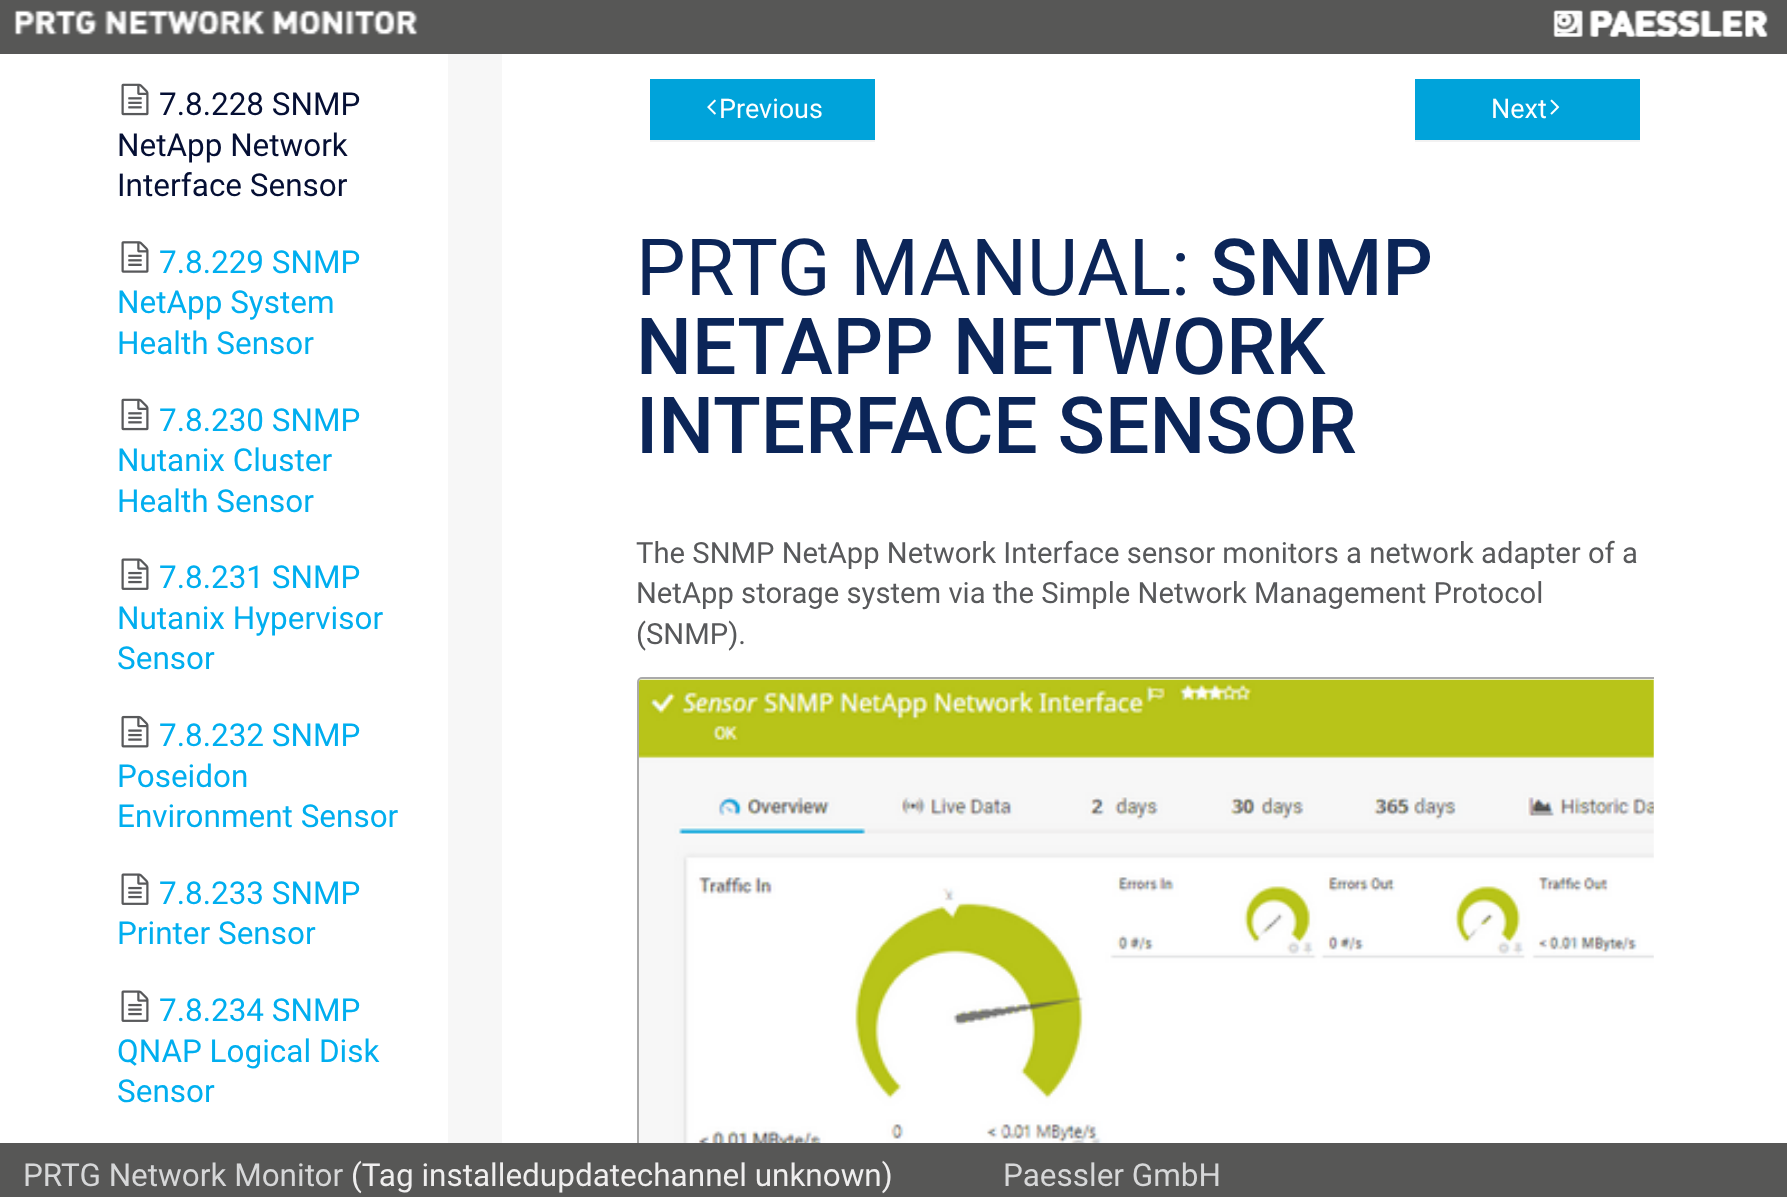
<svg xmlns="http://www.w3.org/2000/svg" xmlns:xlink="http://www.w3.org/1999/xlink" width="1787" height="1197" viewBox="0 0 1787 1197">
<style>
.cls-1{font:31.5px Roboto;fill:#050f34}
.cls-2{font:31.5px Roboto;fill:#00aeef}
.cls-3{font:27px Roboto;fill:#ffffff}
.cls-4{font:78.75px Roboto;fill:#0b2558}
.cls-5{font:500 78.75px Roboto;fill:#0b2558}
.cls-6{font:29.25px Roboto;fill:#58595b}
.cls-7{font:31.5px Roboto;fill:#d6d7d8}
.cls-8{font:31.5px Roboto;fill:#efeeee}
</style>
<defs>
<clipPath id="clip1"><rect x="637" y="533" width="1017" height="612"/></clipPath>
</defs>
<rect width="100%" height="100%" fill="#f7f7f7"/>
<rect fill="#575756" x="0" y="0" width="1787" height="54"/>
<image xlink:href="image0.png" x="14" y="10" width="404" height="25"/>
<image xlink:href="image1.png" x="1553" y="10" width="215" height="27"/>
<image xlink:href="image2.png" x="1553" y="10" width="215" height="27"/>
<rect fill="#ffffff" x="0" y="54" width="448" height="1089"/>
<image xlink:href="image3.png" x="121" y="83" width="28" height="33"/>
<image xlink:href="image4.png" x="121" y="241" width="28" height="32"/>
<image xlink:href="image3.png" x="121" y="398" width="28" height="33"/>
<image xlink:href="image5.png" x="121" y="558" width="28" height="32"/>
<image xlink:href="image6.png" x="121" y="715" width="28" height="33"/>
<image xlink:href="image5.png" x="121" y="873" width="28" height="32"/>
<image xlink:href="image5.png" x="121" y="990" width="28" height="32"/>
<rect fill="#ffffff" x="502" y="54" width="1285" height="1089"/>
<path fill="#f2f2f2" d="M650 81V142H875V140H650Z"/>
<rect fill="#00a3da" x="650" y="79" width="225" height="61"/>
<image xlink:href="image7.png" x="707" y="99" width="9" height="16"/>
<path fill="#f2f2f2" d="M1415 81V142H1640V140H1415Z"/>
<rect fill="#00a3da" x="1415" y="79" width="225" height="61"/>
<image xlink:href="image8.png" x="1550" y="99" width="10" height="16"/>
<g clip-path="url(#clip1)">
<rect fill="none" stroke="#aaaaaa" stroke-width="2" x="638" y="678" width="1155" height="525" rx="4"/>
</g>
<image xlink:href="image9.png" x="639" y="679" width="1015" height="464"/>
<rect fill="#575756" x="0" y="1143" width="1787" height="54"/>
<text class="cls-1" x="159" y="115">7.8.228 SNMP</text>
<text class="cls-1"><tspan x="117" y="156">NetApp Network</tspan><tspan x="117" y="196">Interface Sensor</tspan></text>
<text class="cls-2" x="159" y="273">7.8.229 SNMP</text>
<text class="cls-2"><tspan x="117" y="313">NetApp System</tspan><tspan x="117" y="354">Health Sensor</tspan></text>
<text class="cls-2" x="159" y="431">7.8.230 SNMP</text>
<text class="cls-2"><tspan x="117" y="471">Nutanix Cluster</tspan><tspan x="117" y="512">Health Sensor</tspan></text>
<text class="cls-2" x="159" y="588">7.8.231 SNMP</text>
<text class="cls-2"><tspan x="117" y="629">Nutanix Hypervisor</tspan><tspan x="117" y="669">Sensor</tspan></text>
<text class="cls-2" x="159" y="746">7.8.232 SNMP</text>
<text class="cls-2"><tspan x="117" y="787">Poseidon</tspan><tspan x="117" y="827">Environment Sensor</tspan></text>
<text class="cls-2" x="159" y="904">7.8.233 SNMP</text>
<text class="cls-2" x="117" y="944">Printer Sensor</text>
<text class="cls-2" x="159" y="1021">7.8.234 SNMP</text>
<text class="cls-2"><tspan x="117" y="1062">QNAP Logical Disk</tspan><tspan x="117" y="1102">Sensor</tspan></text>
<text class="cls-3" x="719" y="118">Previous</text>
<text class="cls-3" x="1491" y="118">Next</text>
<text class="cls-4" x="636" y="295">PRTG MANUAL:</text>
<text class="cls-5" x="1210" y="295">SNMP</text>
<text class="cls-5"><tspan x="636" y="374">NETAPP NETWORK</tspan><tspan x="636" y="453">INTERFACE SENSOR</tspan></text>
<text class="cls-6"><tspan x="636" y="563">The SNMP NetApp Network Interface sensor monitors a network adapter of a</tspan><tspan x="636" y="603">NetApp storage system via the Simple Network Management Protocol</tspan><tspan x="636" y="644">(SNMP).</tspan></text>
<text class="cls-7" x="23" y="1186">PRTG Network Monitor</text>
<text class="cls-8" x="351" y="1186">(Tag installedupdatechannel unknown)</text>
<text class="cls-7" x="1003" y="1186">Paessler GmbH</text>
</svg>
